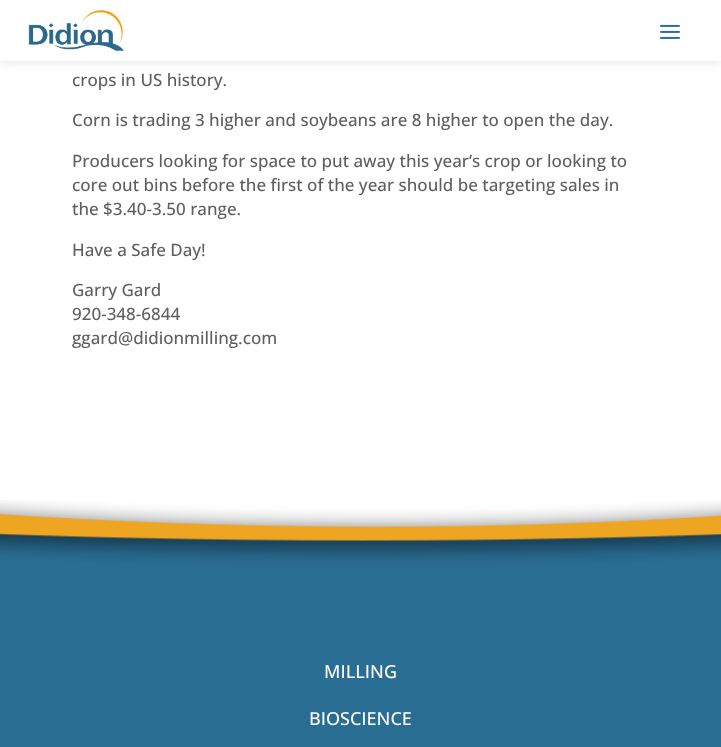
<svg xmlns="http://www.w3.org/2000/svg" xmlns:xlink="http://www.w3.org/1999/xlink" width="721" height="747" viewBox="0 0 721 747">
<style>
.cls-1{font:500 17px Open Sans;fill:#5f5f5f}
.cls-2{font:500 18px Open Sans;fill:#ffffff}
</style>
<rect width="100%" height="100%" fill="#ffffff"/>
<rect fill="#000000" fill-opacity="0.1" filter="blur(5px)" x="0" y="1" width="721" height="61"/>
<rect fill="#ffffff" x="0" y="0" width="721" height="61"/>
<image xlink:href="image0.png" x="28" y="10" width="96" height="41"/>
<image xlink:href="image1.png" x="660" y="24" width="20" height="15"/>
<image xlink:href="image2.png" x="0" y="500" width="721" height="67"/>
<rect fill="#2a6d93" x="0" y="567" width="721" height="180"/>
<rect fill="#296a8f" x="217" y="694" width="288" height="1"/>
<rect fill="#296a8f" x="217" y="741" width="288" height="1"/>
<text class="cls-1" x="72" y="86">crops in US history.</text>
<text class="cls-1" x="72" y="126">Corn is trading 3 higher and soybeans are 8 higher to open the day.</text>
<text class="cls-1"><tspan x="72" y="167">Producers looking for space to put away this year’s crop or looking to</tspan><tspan x="72" y="191">core out bins before the first of the year should be targeting sales in</tspan><tspan x="72" y="215">the $3.40-3.50 range.</tspan></text>
<text class="cls-1" x="72" y="256">Have a Safe Day!</text>
<text class="cls-1"><tspan x="72" y="296">Garry Gard</tspan><tspan x="72" y="320">920-348-6844</tspan><tspan x="72" y="344">ggard@didionmilling.com</tspan></text>
<text class="cls-2" x="324" y="678">MILLING</text>
<text class="cls-2" x="309" y="725">BIOSCIENCE</text>
</svg>
